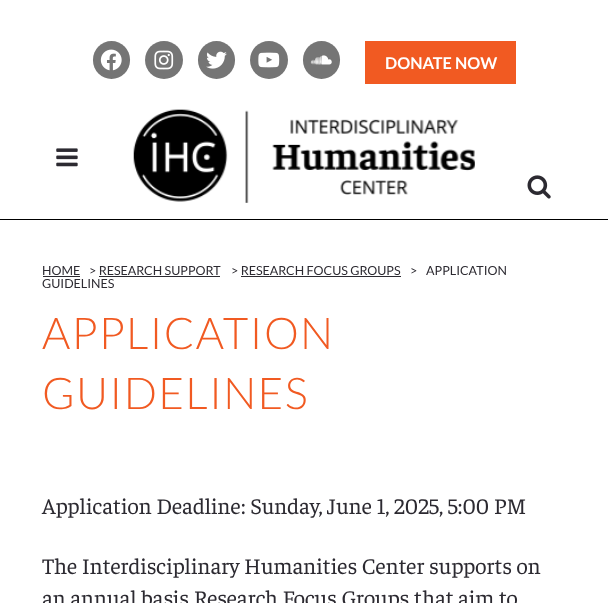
<svg xmlns="http://www.w3.org/2000/svg" xmlns:xlink="http://www.w3.org/1999/xlink" width="608" height="603" viewBox="0 0 608 603">
<style>
.cls-1{font:bold 16.25px Lato;fill:#ffffff}
.cls-2{font:12.5px Lato;fill:#2c2a31}
.cls-3{font:300 43.75px Lato;letter-spacing:1.25px;fill:#f15a22}
.cls-4{font:22.5px Faustina;fill:#2c2a31}
</style>
<rect width="100%" height="100%" fill="#ffffff"/>
<rect fill="#757575" x="93" y="41" width="37" height="38" rx="18.5"/>
<image xlink:href="image0.png" x="100" y="49" width="22" height="22"/>
<circle fill="#757575" cx="164" cy="60" r="19"/>
<image xlink:href="image1.png" x="154" y="50" width="20" height="20"/>
<rect fill="#757575" x="198" y="41" width="37" height="38" rx="18.5"/>
<image xlink:href="image2.png" x="206" y="51" width="21" height="18"/>
<circle fill="#757575" cx="269" cy="60" r="19"/>
<image xlink:href="image3.png" x="258" y="52" width="22" height="16"/>
<rect fill="#757575" x="303" y="41" width="37" height="38" rx="18.5"/>
<image xlink:href="image4.png" x="310" y="55" width="22" height="10"/>
<rect fill="#f15a22" x="365" y="41" width="151" height="43"/>
<rect fill="#000000" x="0" y="219" width="608" height="1"/>
<image xlink:href="image5.png" x="56" y="148" width="22" height="19"/>
<image xlink:href="image6.png" x="133" y="109" width="342" height="94"/>
<image xlink:href="image7.png" x="527" y="175" width="24" height="24"/>
<rect fill="#2c2a31" x="43" y="276" width="37" height="1"/>
<rect fill="#2c2a31" x="99" y="276" width="121" height="1"/>
<rect fill="#2c2a31" x="241" y="276" width="160" height="1"/>
<text class="cls-1" x="385" y="69">DONATE NOW</text>
<text class="cls-2" x="42" y="275">HOME</text>
<text class="cls-2" x="89" y="275">&gt; RESEARCH SUPPORT</text>
<text class="cls-2" x="231" y="275">&gt; RESEARCH FOCUS GROUPS</text>
<text class="cls-2" x="410" y="275">&gt;</text>
<text class="cls-2" x="426" y="275">APPLICATION</text>
<text class="cls-2" x="42" y="288">GUIDELINES</text>
<text class="cls-3"><tspan x="42" y="349">APPLICATION</tspan><tspan x="42" y="409">GUIDELINES</tspan></text>
<text class="cls-4" x="42" y="514">Application Deadline: Sunday, June 1, 2025, 5:00 PM</text>
<text class="cls-4"><tspan x="42" y="574">The Interdisciplinary Humanities Center supports on</tspan><tspan x="42" y="606">an annual basis Research Focus Groups that aim to</tspan></text>
</svg>
